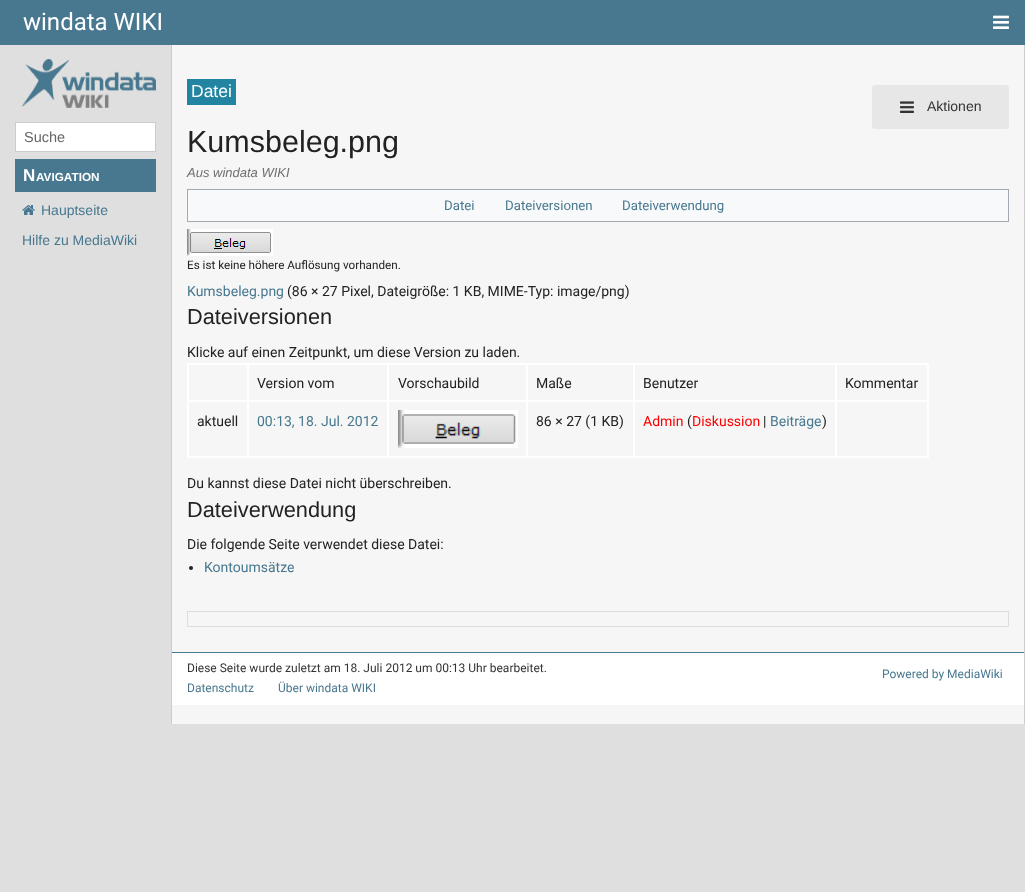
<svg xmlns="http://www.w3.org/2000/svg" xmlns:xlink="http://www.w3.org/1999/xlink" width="1025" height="892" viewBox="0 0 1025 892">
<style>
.cls-1{font:24px Roboto;fill:#ffffff}
.cls-2{font:14.5px Liberation Sans;fill:#666666}
.cls-3{font:bold 17px Liberation Sans;fill:#ffffff}
.cls-4{font:bold 11.75px Liberation Sans;fill:#ffffff}
.cls-5{font:14px Liberation Sans;fill:#48788f}
.cls-6{font:17.5px Liberation Sans;fill:#ffffff}
.cls-7{font:14px Liberation Sans;fill:#333333}
.cls-8{font:30.5px Liberation Sans;fill:#222222}
.cls-9{font:italic 13px Liberation Sans;fill:#6f6f6f}
.cls-10{font:13.25px Roboto;fill:#48788f}
.cls-11{font:11.7px Roboto;fill:#222222}
.cls-12{font:14px Roboto;fill:#48788f}
.cls-13{font:14px Roboto;fill:#222222}
.cls-14{font:21.75px Liberation Sans;fill:#222222}
.cls-15{font:14px Roboto;fill:#ff0000}
.cls-16{font:12px Roboto;fill:#333333}
.cls-17{font:12px Roboto;fill:#48788f}
</style>
<rect width="100%" height="100%" fill="#dfdfdf"/>
<rect fill="#48788f" x="0" y="0" width="1025" height="45"/>
<image xlink:href="image0.png" x="993" y="15" width="16" height="14"/>
<image xlink:href="image1.png" x="22" y="59" width="134" height="49"/>
<rect fill="#ffffff" stroke="#cccccc" x="15.5" y="122.5" width="140" height="29"/>
<rect fill="#48788f" x="15" y="159" width="141" height="33"/>
<image xlink:href="image2.png" x="22" y="205" width="13" height="10"/>
<rect fill="#f6f6f6" x="172" y="45" width="852" height="679"/>
<rect fill="#cccccc" x="1024" y="45" width="1" height="679"/>
<rect fill="#cccccc" x="171" y="45" width="1" height="679"/>
<rect fill="#2284a1" x="187" y="79" width="49" height="26"/>
<rect fill="#e7e7e7" x="872" y="85" width="137" height="44" rx="3"/>
<image xlink:href="image3.png" x="900" y="101" width="14" height="12"/>
<rect fill="#f8f9fa" stroke="#a2a9b1" x="187.5" y="189.5" width="821" height="32"/>
<image xlink:href="image4.png" x="187" y="229" width="86" height="27"/>
<rect fill="#ffffff" x="835" y="363" width="94" height="2"/>
<rect fill="#ffffff" x="835" y="400" width="94" height="2"/>
<rect fill="#ffffff" x="927" y="400" width="2" height="58"/>
<rect fill="#ffffff" x="835" y="456" width="94" height="2"/>
<rect fill="#ffffff" x="835" y="400" width="2" height="58"/>
<rect fill="#ffffff" x="633" y="400" width="204" height="2"/>
<rect fill="#ffffff" x="835" y="363" width="2" height="39"/>
<rect fill="#ffffff" x="633" y="363" width="204" height="2"/>
<rect fill="#ffffff" x="633" y="456" width="204" height="2"/>
<rect fill="#ffffff" x="633" y="400" width="2" height="58"/>
<rect fill="#ffffff" x="526" y="400" width="109" height="2"/>
<rect fill="#ffffff" x="633" y="363" width="2" height="39"/>
<rect fill="#ffffff" x="526" y="363" width="109" height="2"/>
<rect fill="#ffffff" x="526" y="456" width="109" height="2"/>
<rect fill="#ffffff" x="526" y="400" width="2" height="58"/>
<rect fill="#ffffff" x="387" y="400" width="141" height="2"/>
<rect fill="#ffffff" x="526" y="363" width="2" height="39"/>
<rect fill="#ffffff" x="387" y="363" width="141" height="2"/>
<rect fill="#ffffff" x="387" y="456" width="141" height="2"/>
<rect fill="#ffffff" x="387" y="400" width="2" height="58"/>
<rect fill="#ffffff" x="247" y="400" width="142" height="2"/>
<rect fill="#ffffff" x="387" y="363" width="2" height="39"/>
<rect fill="#ffffff" x="247" y="363" width="142" height="2"/>
<rect fill="#ffffff" x="247" y="456" width="142" height="2"/>
<rect fill="#ffffff" x="247" y="400" width="2" height="58"/>
<rect fill="#ffffff" x="187" y="400" width="62" height="2"/>
<rect fill="#ffffff" x="247" y="363" width="2" height="39"/>
<rect fill="#ffffff" x="187" y="363" width="62" height="2"/>
<rect fill="#ffffff" x="187" y="456" width="62" height="2"/>
<rect fill="#ffffff" x="187" y="400" width="2" height="58"/>
<rect fill="#ffffff" x="187" y="363" width="2" height="39"/>
<rect fill="#ffffff" x="927" y="363" width="2" height="39"/>
<rect fill="#ffffff" x="516" y="410" width="2" height="38"/>
<image xlink:href="image5.png" x="398" y="410" width="118" height="38"/>
<circle fill="#222222" cx="191" cy="568" r="2"/>
<rect fill="none" stroke="#dddddd" x="187.5" y="611.5" width="821" height="15"/>
<rect fill="#ffffff" x="172" y="653" width="852" height="52"/>
<rect fill="#48788f" x="172" y="652" width="852" height="1"/>
<text class="cls-1" x="23" y="30">windata WIKI</text>
<text class="cls-2" x="24" y="142">Suche</text>
<text class="cls-3" x="23" y="181">N</text>
<text class="cls-4" x="36" y="181">AVIGATION</text>
<text class="cls-5" x="41" y="215">Hauptseite</text>
<text class="cls-5" x="22" y="245">Hilfe zu MediaWiki</text>
<text class="cls-6" x="191" y="97">Datei</text>
<text class="cls-7" x="927" y="111">Aktionen</text>
<text class="cls-8" x="187" y="152">Kumsbeleg.png</text>
<text class="cls-9" x="187" y="177">Aus windata WIKI</text>
<text class="cls-10" x="444" y="210">Datei</text>
<text class="cls-10" x="505" y="210">Dateiversionen</text>
<text class="cls-10" x="622" y="210">Dateiverwendung</text>
<text class="cls-11" x="187" y="269">Es ist keine höhere Auflösung vorhanden.</text>
<text class="cls-12" x="187" y="296">Kumsbeleg.png</text>
<text class="cls-13" x="287" y="296">(86 × 27 Pixel, Dateigröße: 1 KB, MIME-Typ: image/png)</text>
<text class="cls-14" x="187" y="324">Dateiversionen</text>
<text class="cls-13" x="187" y="357">Klicke auf einen Zeitpunkt, um diese Version zu laden.</text>
<text class="cls-13" x="257" y="388">Version vom</text>
<text class="cls-13" x="398" y="388">Vorschaubild</text>
<text class="cls-13" x="536" y="388">Maße</text>
<text class="cls-13" x="643" y="388">Benutzer</text>
<text class="cls-13" x="845" y="388">Kommentar</text>
<text class="cls-13" x="197" y="426">aktuell</text>
<text class="cls-12" x="257" y="426">00:13, 18. Jul. 2012</text>
<text class="cls-13" x="536" y="426">86 × 27 (1 KB)</text>
<text class="cls-15" x="643" y="426">Admin</text>
<text class="cls-13" x="687" y="426">(</text>
<text class="cls-15" x="692" y="426">Diskussion</text>
<text class="cls-13" x="763" y="426">|</text>
<text class="cls-12" x="770" y="426">Beiträge</text>
<text class="cls-13" x="822" y="426">)</text>
<text class="cls-13" x="187" y="488">Du kannst diese Datei nicht überschreiben.</text>
<text class="cls-14" x="187" y="517">Dateiverwendung</text>
<text class="cls-13" x="187" y="549">Die folgende Seite verwendet diese Datei:</text>
<text class="cls-12" x="204" y="572">Kontoumsätze</text>
<text class="cls-16" x="187" y="672">Diese Seite wurde zuletzt am 18. Juli 2012 um 00:13 Uhr bearbeitet.</text>
<text class="cls-17" x="187" y="692">Datenschutz</text>
<text class="cls-17" x="278" y="692">Über windata WIKI</text>
<text class="cls-17" x="882" y="678">Powered by MediaWiki</text>
</svg>
